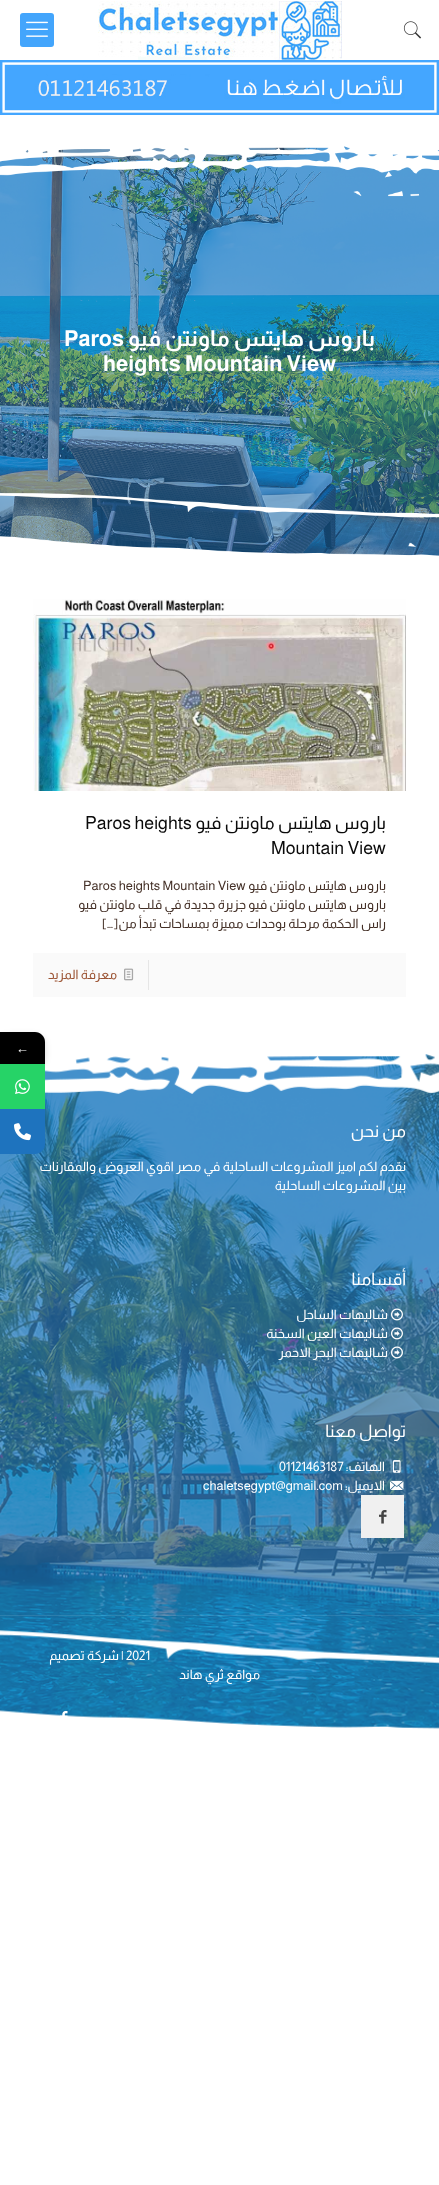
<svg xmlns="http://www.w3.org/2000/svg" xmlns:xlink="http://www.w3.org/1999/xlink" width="439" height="2185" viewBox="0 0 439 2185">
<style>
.cls-1{font:bold 22px Almarai;direction:rtl;fill:#ffffff}
.cls-2{font:bold 22px Almarai;fill:#ffffff}
.cls-3{font:18px Almarai;direction:rtl;fill:#0a0a0a}
.cls-4{font:18px Almarai;fill:#0a0a0a}
.cls-5{font:13px Almarai;direction:rtl;fill:#432f26}
.cls-6{font:13px Almarai;fill:#432f26}
.cls-7{font:13px Almarai;direction:rtl;fill:#9c5434}
.cls-8{font:17px Almarai;direction:rtl;fill:#ffffff}
.cls-9{font:13px Almarai;direction:rtl;fill:#ffffff}
.cls-10{font:13px Almarai;fill:#ffffff}
.cls-11{font:13px Liberation Serif;fill:#ffffff}
</style>
<rect width="100%" height="100%" fill="#ffffff"/>
<image xlink:href="image0.png" x="98" y="1" width="244" height="59"/>
<rect fill="#43a5fc" x="20" y="13" width="34" height="34" rx="3"/>
<image xlink:href="image1.png" x="26" y="21" width="22" height="16"/>
<image xlink:href="image2.png" x="0" y="60" width="439" height="55"/>
<image xlink:href="image3.png" x="403" y="21" width="19" height="18"/>
<image xlink:href="image4.png" x="0" y="146" width="439" height="410"/>
<image xlink:href="image5.png" x="33" y="599" width="373" height="192"/>
<rect fill="#fafafa" x="33" y="953" width="373" height="44"/>
<rect fill="#e6e6e6" x="148" y="960" width="1" height="30"/>
<image xlink:href="image6.png" x="124" y="968" width="10" height="13"/>
<image xlink:href="image7.png" x="0" y="1054" width="439" height="675"/>
<image xlink:href="image8.png" x="391" y="1308" width="12" height="13"/>
<image xlink:href="image9.png" x="391" y="1327" width="12" height="13"/>
<image xlink:href="image10.png" x="391" y="1346" width="12" height="13"/>
<image xlink:href="image11.png" x="393" y="1460" width="8" height="13"/>
<image xlink:href="image12.png" x="390" y="1480" width="14" height="10"/>
<rect fill="#f0f0f0" x="361" y="1495" width="43" height="43"/>
<image xlink:href="image13.png" x="379" y="1510" width="8" height="14"/>
<rect fill="#ffffff" fill-opacity="0.1" x="0" y="1615" width="439" height="1"/>
<image xlink:href="image14.png" x="60" y="1711" width="8" height="6"/>
<rect fill="#000000" fill-opacity="0.16" filter="blur(3px)" x="0" y="1035" width="45" height="32" rx="10"/>
<path fill="#000000" d="M0 1032H35C40.5 1032 45 1036.5 45 1042V1064H0Z"/>
<rect fill="#26d367" x="0" y="1064" width="45" height="45"/>
<image xlink:href="image15.png" x="15" y="1079" width="15" height="15"/>
<path fill="#1e73be" d="M0 1109H45V1144C45 1149.5 40.5 1154 35 1154H0Z"/>
<image xlink:href="image16.png" x="14" y="1123" width="17" height="18"/>
<text class="cls-1" x="375" y="346">باروس هايتس ماونتن فيو</text>
<text class="cls-2" x="64" y="346">Paros</text>
<text class="cls-2" x="103" y="371">heights Mountain View</text>
<text class="cls-3" x="386" y="829">باروس هايتس ماونتن فيو</text>
<text class="cls-4" x="85" y="829">Paros heights</text>
<text class="cls-4" x="271" y="854">Mountain View</text>
<text class="cls-5" x="386" y="890">باروس هايتس ماونتن فيو</text>
<text class="cls-6" x="83" y="890">Paros heights Mountain View</text>
<text class="cls-5"><tspan x="386" y="909">باروس هايتس ماونتن فيو جزيرة جديدة في قلب ماونتن فيو</tspan><tspan x="386" y="928">راس الحكمة مرحلة بوحدات مميزة بمساحات تبدأ من</tspan></text>
<text class="cls-6" x="102" y="928">[…]</text>
<text class="cls-7" x="117" y="979">معرفة المزيد</text>
<text class="cls-8" x="406" y="1137">من نحن</text>
<text class="cls-9"><tspan x="406" y="1171">نقدم لكم اميز المشروعات الساحلية في مصر اقوي العروض والمقارنات</tspan><tspan x="406" y="1190">بين المشروعات الساحلية</tspan></text>
<text class="cls-8" x="406" y="1285">أقسامنا</text>
<text class="cls-9"><tspan x="388" y="1319">شاليهات الساحل</tspan><tspan x="388" y="1338">شاليهات العين السخنة</tspan><tspan x="388" y="1357">شاليهات البحر الاحمر</tspan></text>
<text class="cls-8" x="406" y="1437">تواصل معنا</text>
<text class="cls-9" x="385" y="1471">الهاتف:</text>
<text class="cls-10" x="279" y="1471">01121463187</text>
<text class="cls-9" x="385" y="1490">الايميل:</text>
<text class="cls-10" x="203" y="1490">chaletsegypt@gmail.com</text>
<text class="cls-10" x="121" y="1660">| 2021</text>
<text class="cls-9" x="119" y="1660">شركة تصميم</text>
<text class="cls-9" x="260" y="1679">مواقع</text>
<text class="cls-9" x="224" y="1679">ثري هاند</text>
<text class="cls-11" x="16" y="1053">←</text>
</svg>
